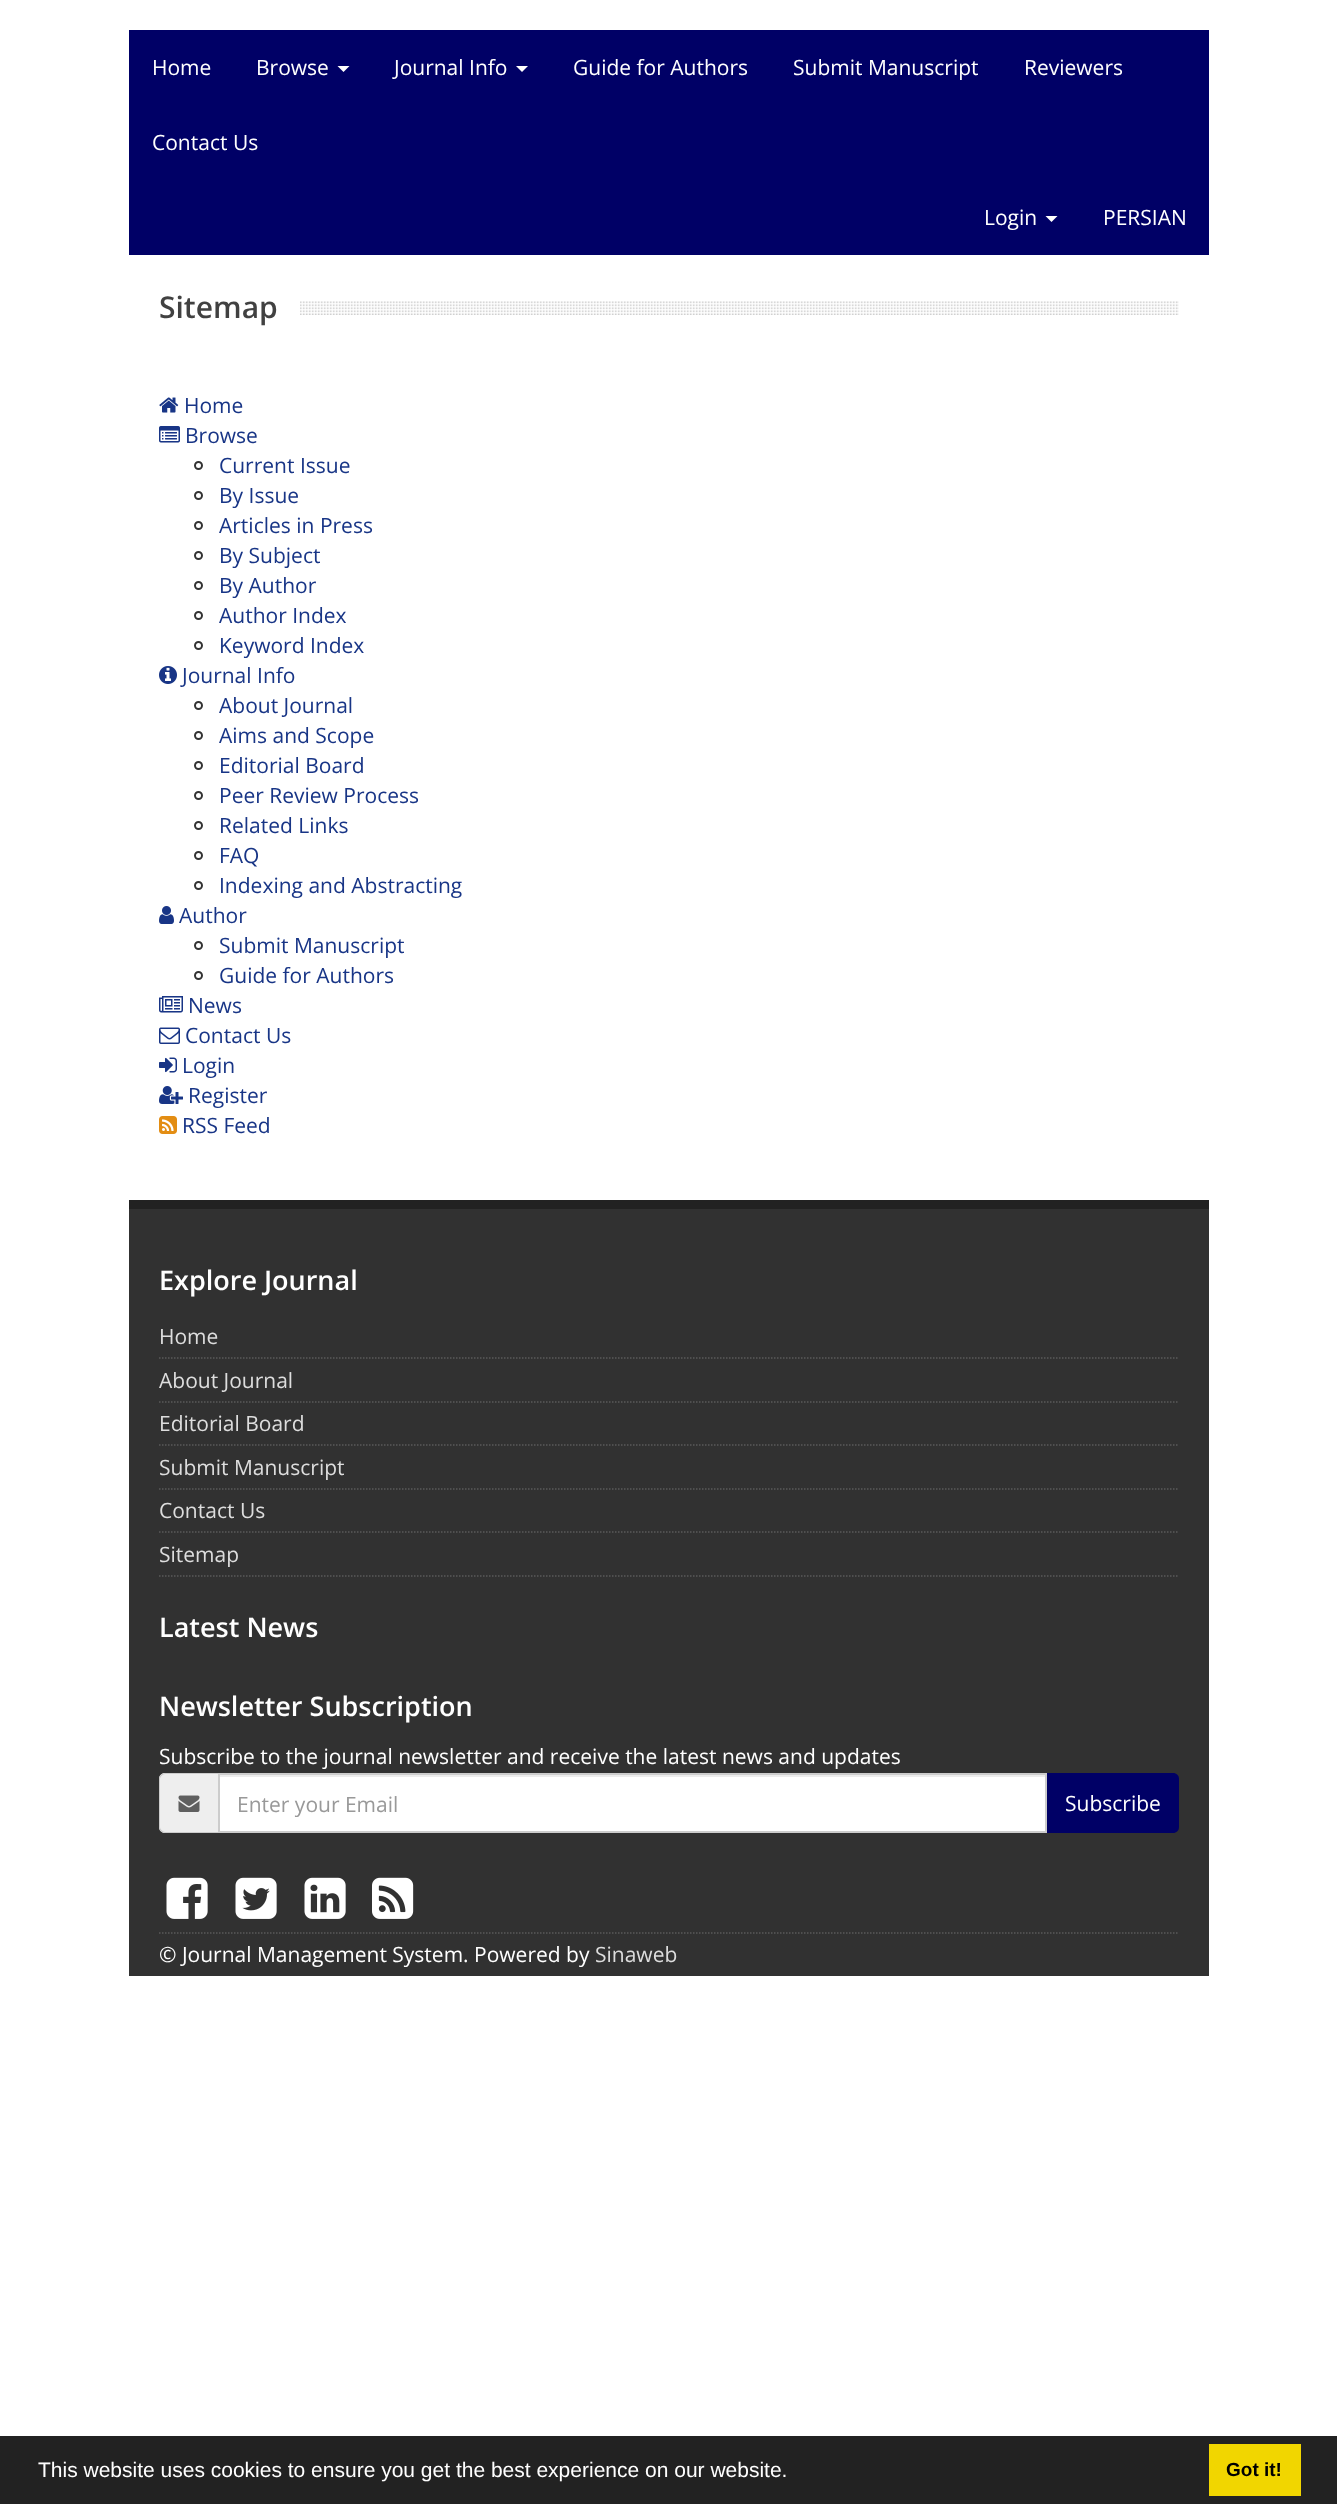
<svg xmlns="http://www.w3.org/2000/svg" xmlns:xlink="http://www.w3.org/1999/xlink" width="1337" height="2504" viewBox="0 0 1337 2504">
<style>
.cls-1{font:21px Open Sans;fill:#ffffff}
.cls-2{font:600 30px Open Sans;fill:#414141}
.cls-3{font:21px Open Sans;fill:#183586}
.cls-4{font:600 27px Open Sans;fill:#ffffff}
.cls-5{font:21px Open Sans;fill:#dddddd}
.cls-6{font:21px Open Sans;fill:#999999}
.cls-7{font:21px Liberation Sans;fill:#ffffff}
.cls-8{font:bold 19px Liberation Sans;fill:#000000}
</style>
<rect width="100%" height="100%" fill="#ffffff"/>
<rect fill="#000066" x="129" y="30" width="1080" height="225"/>
<path fill="#ffffff" d="M337.5 66H349.5L343.5 72Z"/>
<path fill="#ffffff" d="M516 66H528L522 72Z"/>
<path fill="#ffffff" d="M1045.5 216H1057.5L1051.5 222Z"/>
<image xlink:href="image0.png" x="300" y="301" width="879" height="14"/>
<image xlink:href="image1.png" x="159" y="397" width="20" height="16"/>
<image xlink:href="image2.png" x="159" y="426" width="21" height="17"/>
<circle fill="none" stroke="#333333" stroke-width="2" cx="198.5" cy="465.5" r="3.5"/>
<circle fill="none" stroke="#333333" stroke-width="2" cx="198.5" cy="495.5" r="3.5"/>
<circle fill="none" stroke="#333333" stroke-width="2" cx="198.5" cy="525.5" r="3.5"/>
<circle fill="none" stroke="#333333" stroke-width="2" cx="198.5" cy="555.5" r="3.5"/>
<circle fill="none" stroke="#333333" stroke-width="2" cx="198.5" cy="585.5" r="3.5"/>
<circle fill="none" stroke="#333333" stroke-width="2" cx="198.5" cy="615.5" r="3.5"/>
<circle fill="none" stroke="#333333" stroke-width="2" cx="198.5" cy="645.5" r="3.5"/>
<image xlink:href="image3.png" x="159" y="666" width="18" height="18"/>
<circle fill="none" stroke="#333333" stroke-width="2" cx="198.5" cy="705.5" r="3.5"/>
<circle fill="none" stroke="#333333" stroke-width="2" cx="198.5" cy="735.5" r="3.5"/>
<circle fill="none" stroke="#333333" stroke-width="2" cx="198.5" cy="765.5" r="3.5"/>
<circle fill="none" stroke="#333333" stroke-width="2" cx="198.5" cy="795.5" r="3.5"/>
<circle fill="none" stroke="#333333" stroke-width="2" cx="198.5" cy="825.5" r="3.5"/>
<circle fill="none" stroke="#333333" stroke-width="2" cx="198.5" cy="855.5" r="3.5"/>
<circle fill="none" stroke="#333333" stroke-width="2" cx="198.5" cy="885.5" r="3.5"/>
<image xlink:href="image4.png" x="159" y="906" width="15" height="18"/>
<circle fill="none" stroke="#333333" stroke-width="2" cx="198.5" cy="945.5" r="3.5"/>
<circle fill="none" stroke="#333333" stroke-width="2" cx="198.5" cy="975.5" r="3.5"/>
<image xlink:href="image5.png" x="159" y="996" width="24" height="17"/>
<image xlink:href="image6.png" x="159" y="1027" width="21" height="17"/>
<image xlink:href="image7.png" x="159" y="1057" width="18" height="16"/>
<image xlink:href="image8.png" x="159" y="1086" width="24" height="18"/>
<image xlink:href="image9.png" x="159" y="1116" width="18" height="18"/>
<rect fill="#313131" x="129" y="1209" width="1080" height="767"/>
<rect fill="#222222" x="129" y="1200" width="1080" height="9"/>
<path fill="none" stroke="#5a5a5a" stroke-width="1.5" stroke-dasharray="1.5 1.5" d="M159 1358H1179"/>
<path fill="none" stroke="#5a5a5a" stroke-width="1.5" stroke-dasharray="1.5 1.5" d="M159 1402H1179"/>
<path fill="none" stroke="#5a5a5a" stroke-width="1.5" stroke-dasharray="1.5 1.5" d="M159 1445H1179"/>
<path fill="none" stroke="#5a5a5a" stroke-width="1.5" stroke-dasharray="1.5 1.5" d="M159 1489H1179"/>
<path fill="none" stroke="#5a5a5a" stroke-width="1.5" stroke-dasharray="1.5 1.5" d="M159 1532H1179"/>
<path fill="none" stroke="#5a5a5a" stroke-width="1.5" stroke-dasharray="1.5 1.5" d="M159 1576H1179"/>
<path fill="#eeeeee" d="M165 1773H218V1833H165C161.5 1833 159 1830.5 159 1827V1779C159 1775.5 161.5 1773 165 1773Z"/>
<path fill="#cccccc" fill-rule="evenodd" d="M165 1773H218V1833H165C162 1833 159 1830 159 1827V1779C159 1776 162 1773 165 1773ZM165 1774H218V1832H165C163 1832 160 1829 160 1827V1779C160 1777 163 1774 165 1774Z"/>
<image xlink:href="image10.png" x="178" y="1795" width="22" height="17"/>
<rect fill="#ffffff" x="220" y="1777" width="825" height="54"/>
<rect fill="#ececec" x="219" y="1775" width="827" height="2"/>
<rect fill="none" stroke="#cccccc" stroke-width="2" x="219" y="1774" width="827" height="58"/>
<path fill="#000066" d="M1047 1773H1173C1176.5 1773 1179 1775.5 1179 1779V1827C1179 1830.5 1176.5 1833 1173 1833H1047Z"/>
<path fill="none" stroke="#5a5a5a" stroke-width="1.5" stroke-dasharray="1.5 1.5" d="M159 1933H1179"/>
<image xlink:href="image11.png" x="166" y="1877" width="42" height="42"/>
<image xlink:href="image12.png" x="235" y="1877" width="42" height="42"/>
<image xlink:href="image13.png" x="304" y="1877" width="42" height="42"/>
<image xlink:href="image14.png" x="372" y="1877" width="42" height="42"/>
<rect fill="#222222" x="0" y="2436" width="1337" height="68"/>
<rect fill="#f1d600" x="1209" y="2444" width="92" height="52"/>
<text class="cls-1" x="152" y="75">Home</text>
<text class="cls-1" x="256" y="75">Browse</text>
<text class="cls-1" x="394" y="75">Journal Info</text>
<text class="cls-1" x="573" y="75">Guide for Authors</text>
<text class="cls-1" x="793" y="75">Submit Manuscript</text>
<text class="cls-1" x="1024" y="75">Reviewers</text>
<text class="cls-1" x="152" y="150">Contact Us</text>
<text class="cls-1" x="984" y="225">Login</text>
<text class="cls-1" x="1103" y="225">PERSIAN</text>
<text class="cls-2" x="159" y="318">Sitemap</text>
<text class="cls-3" x="184" y="413">Home</text>
<text class="cls-3" x="185" y="443">Browse</text>
<text class="cls-3"><tspan x="219" y="473">Current Issue</tspan><tspan x="219" y="503">By Issue</tspan><tspan x="219" y="533">Articles in Press</tspan><tspan x="219" y="563">By Subject</tspan><tspan x="219" y="593">By Author</tspan><tspan x="219" y="623">Author Index</tspan><tspan x="219" y="653">Keyword Index</tspan></text>
<text class="cls-3" x="182" y="683">Journal Info</text>
<text class="cls-3"><tspan x="219" y="713">About Journal</tspan><tspan x="219" y="743">Aims and Scope</tspan><tspan x="219" y="773">Editorial Board</tspan><tspan x="219" y="803">Peer Review Process</tspan><tspan x="219" y="833">Related Links</tspan><tspan x="219" y="863">FAQ</tspan><tspan x="219" y="893">Indexing and Abstracting</tspan></text>
<text class="cls-3" x="179" y="923">Author</text>
<text class="cls-3"><tspan x="219" y="953">Submit Manuscript</tspan><tspan x="219" y="983">Guide for Authors</tspan></text>
<text class="cls-3" x="188" y="1013">News</text>
<text class="cls-3" x="185" y="1043">Contact Us</text>
<text class="cls-3" x="182" y="1073">Login</text>
<text class="cls-3" x="188" y="1103">Register</text>
<text class="cls-3" x="182" y="1133">RSS Feed</text>
<text class="cls-4" x="159" y="1290">Explore Journal</text>
<text class="cls-5" x="159" y="1344">Home</text>
<text class="cls-5" x="159" y="1388">About Journal</text>
<text class="cls-5" x="159" y="1431">Editorial Board</text>
<text class="cls-5" x="159" y="1475">Submit Manuscript</text>
<text class="cls-5" x="159" y="1518">Contact Us</text>
<text class="cls-5" x="159" y="1562">Sitemap</text>
<text class="cls-4" x="159" y="1637">Latest News</text>
<text class="cls-4" x="159" y="1716">Newsletter Subscription</text>
<text class="cls-1" x="159" y="1764">Subscribe to the journal newsletter and receive the latest news and updates</text>
<text class="cls-6" x="237" y="1812">Enter your Email</text>
<text class="cls-1" x="1065" y="1811">Subscribe</text>
<text class="cls-1" x="159" y="1962">© Journal Management System. Powered by</text>
<text class="cls-5" x="595" y="1962">Sinaweb</text>
<text class="cls-7" x="38" y="2477">This website uses cookies to ensure you get the best experience on our website.</text>
<text class="cls-8" x="1226" y="2476">Got it!</text>
</svg>
